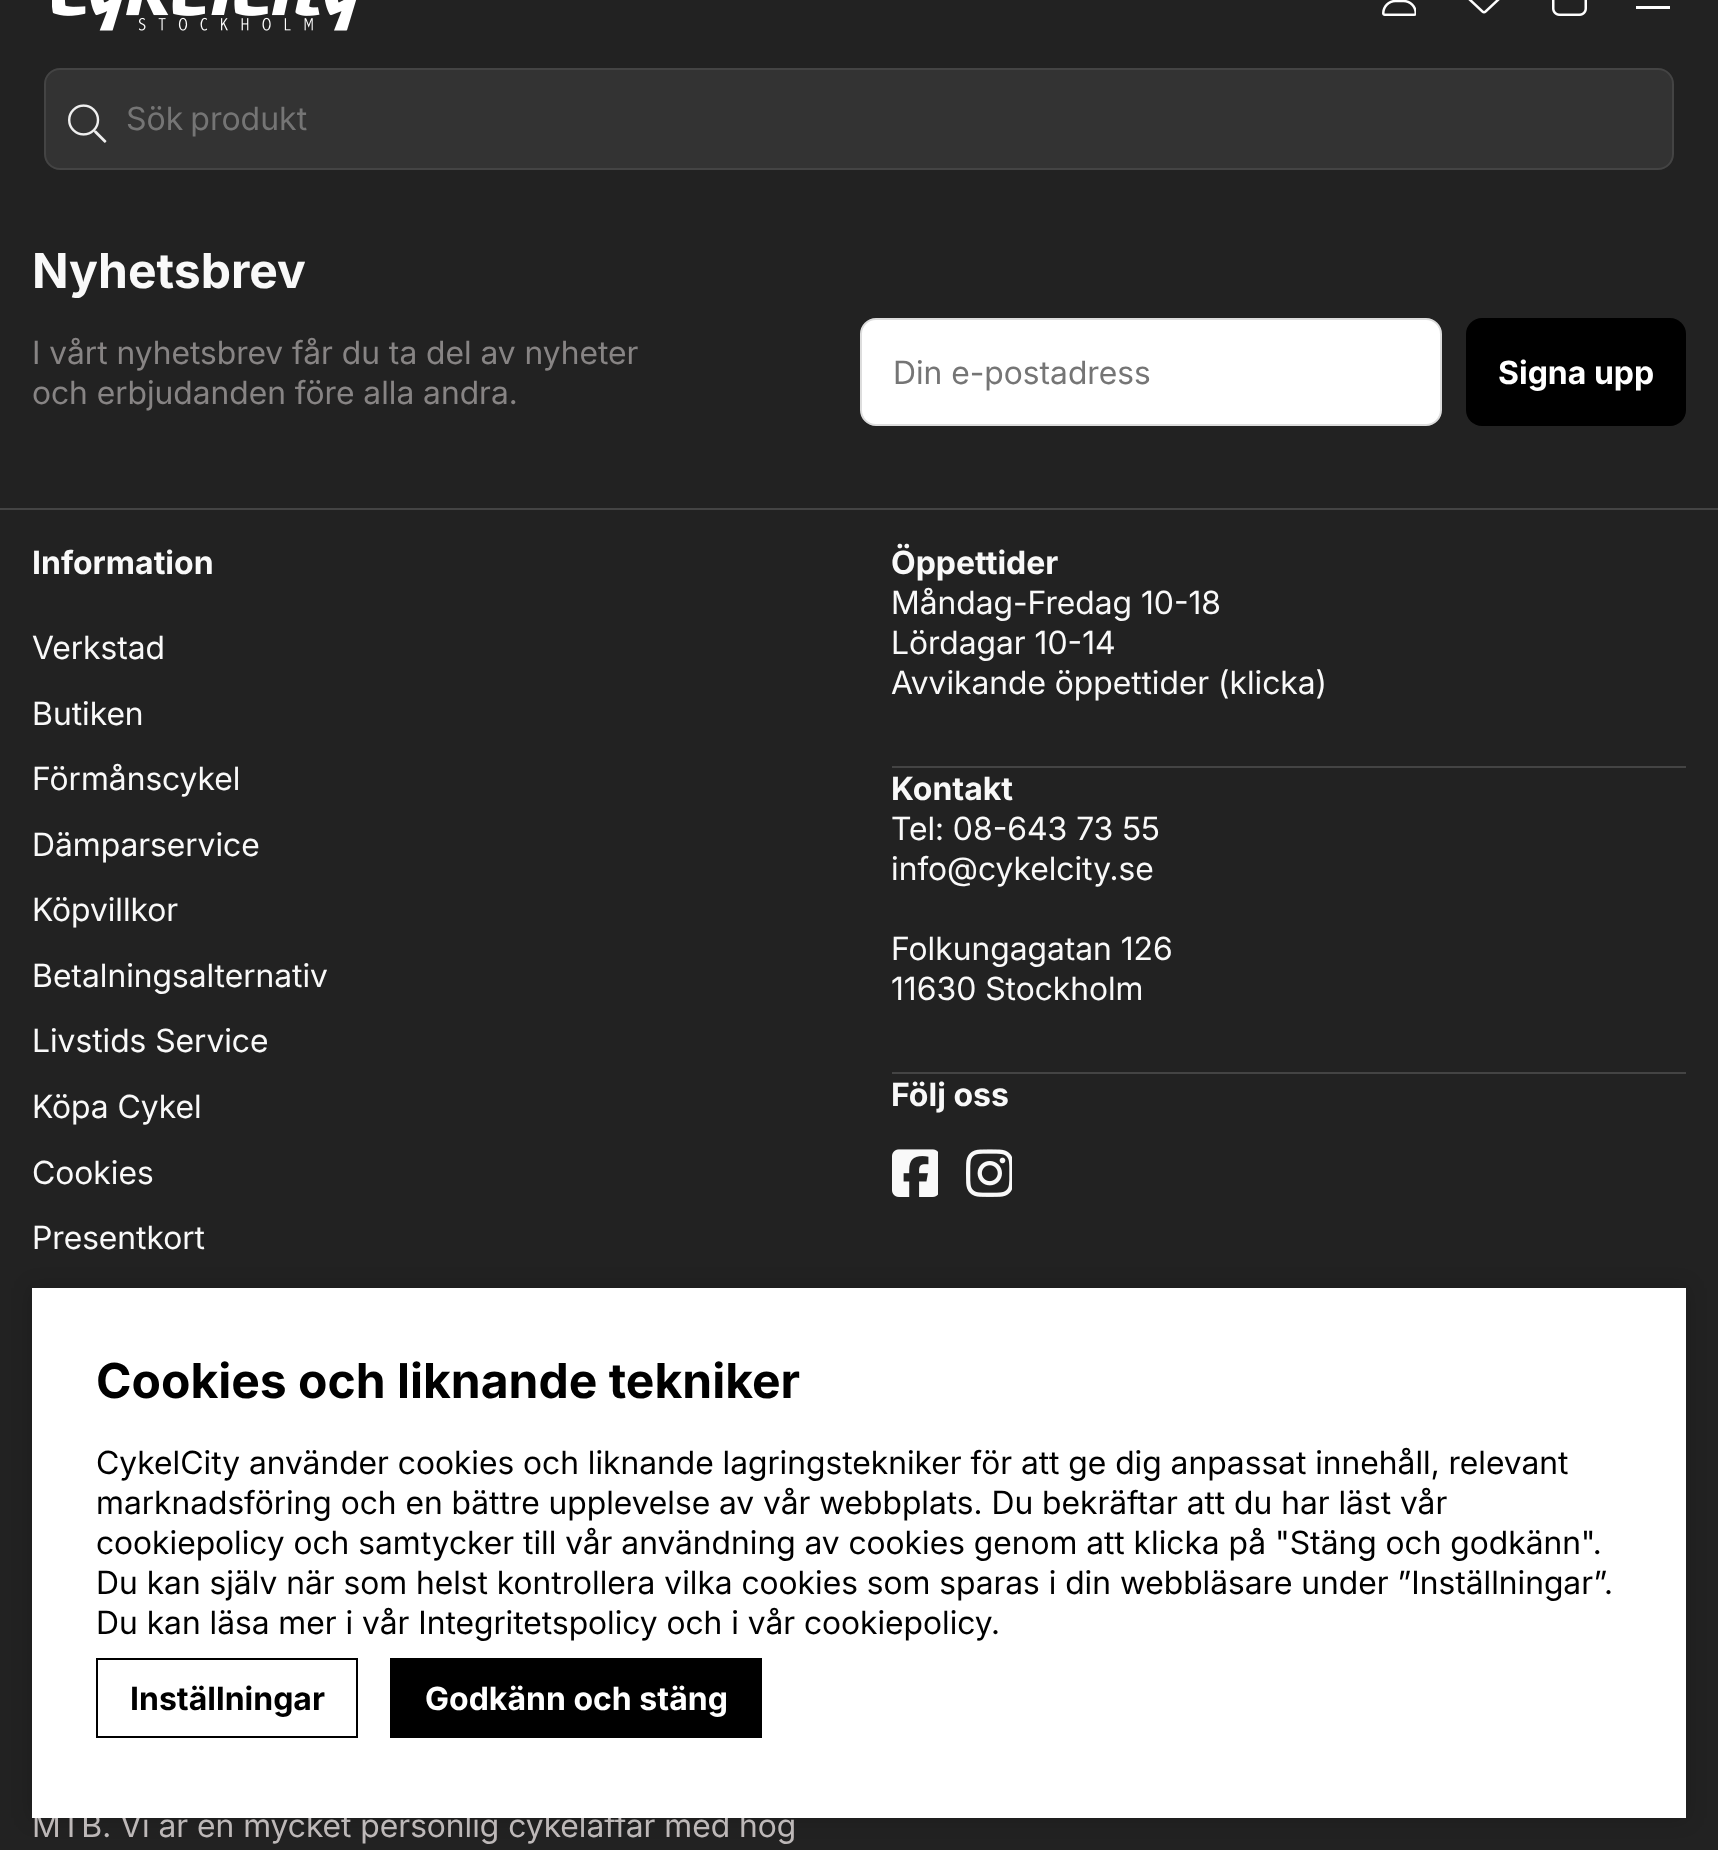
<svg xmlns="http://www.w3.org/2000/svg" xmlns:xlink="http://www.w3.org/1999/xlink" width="1718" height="1850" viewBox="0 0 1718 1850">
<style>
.cls-1{font:32px 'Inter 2';fill:#757575}
.cls-2{font:bold 48px Inter;fill:#f9f9f9}
.cls-3{font:32px Inter;fill:#878484}
.cls-4{font:32px Inter;fill:#757575}
.cls-5{font:bold 32px Inter;fill:#ffffff}
.cls-6{font:bold 32px Inter;fill:#f9f9f9}
.cls-7{font:32px Inter;fill:#f9f9f9}
.cls-8{font:32px Inter;fill:#bdb8b8}
.cls-9{font:bold 48px Inter;fill:#000000}
.cls-10{font:32px Inter;fill:#000000}
.cls-11{font:bold 32px Inter;fill:#000000}
</style>
<rect width="100%" height="100%" fill="#222222"/>
<image xlink:href="image0.png" x="52" y="0" width="305" height="31"/>
<image xlink:href="image1.png" x="1382" y="0" width="34" height="16"/>
<image xlink:href="image2.png" x="1468" y="0" width="32" height="14"/>
<image xlink:href="image3.png" x="1552" y="0" width="35" height="16"/>
<rect fill="#ffffff" x="1636" y="6" width="34" height="3"/>
<rect fill="#333333" stroke="#444444" stroke-width="2" x="45" y="69" width="1628" height="100" rx="15"/>
<image xlink:href="image4.png" x="68" y="104" width="39" height="39"/>
<rect fill="#444444" x="0" y="508" width="1718" height="2"/>
<rect fill="#ffffff" stroke="#dddddd" stroke-width="2" x="861" y="319" width="580" height="106" rx="15"/>
<rect fill="#000000" x="1466" y="318" width="220" height="108" rx="16"/>
<rect fill="#444444" x="892" y="766" width="794" height="2"/>
<rect fill="#444444" x="892" y="1072" width="794" height="2"/>
<image xlink:href="image5.png" x="892" y="1149" width="46" height="48"/>
<image xlink:href="image6.png" x="966" y="1149" width="46" height="48"/>
<rect fill="#000000" fill-opacity="0.2" filter="blur(10px)" x="32" y="1288" width="1654" height="530"/>
<text class="cls-1" x="126" y="130" word-spacing="-2">Sök produkt</text>
<text class="cls-2" x="32" y="288">Nyhetsbrev</text>
<text class="cls-3"><tspan x="32" y="364">I vårt nyhetsbrev får du ta del av nyheter</tspan><tspan x="32" y="404">och erbjudanden före alla andra.</tspan></text>
<text class="cls-4" x="893" y="384">Din e-postadress</text>
<text class="cls-5" x="1498" y="384">Signa upp</text>
<text class="cls-6" x="32" y="574">Information</text>
<text class="cls-7" x="32" y="659">Verkstad</text>
<text class="cls-7" x="32" y="725">Butiken</text>
<text class="cls-7" x="32" y="790">Förmånscykel</text>
<text class="cls-7" x="32" y="856">Dämparservice</text>
<text class="cls-7" x="32" y="921">Köpvillkor</text>
<text class="cls-7" x="32" y="987">Betalningsalternativ</text>
<text class="cls-7" x="32" y="1052">Livstids Service</text>
<text class="cls-7" x="32" y="1118">Köpa Cykel</text>
<text class="cls-7" x="32" y="1184">Cookies</text>
<text class="cls-7" x="32" y="1249">Presentkort</text>
<text class="cls-6" x="891" y="574">Öppettider</text>
<text class="cls-7"><tspan x="891" y="614">Måndag-Fredag 10-18</tspan><tspan x="891" y="654">Lördagar 10-14</tspan><tspan x="891" y="694">Avvikande öppettider (klicka)</tspan></text>
<text class="cls-6" x="891" y="800">Kontakt</text>
<text class="cls-7"><tspan x="891" y="840">Tel: 08-643 73 55</tspan><tspan x="891" y="880">info@cykelcity.se</tspan></text>
<text class="cls-7"><tspan x="891" y="960">Folkungagatan 126</tspan><tspan x="891" y="1000">11630 Stockholm</tspan></text>
<text class="cls-6" x="891" y="1106">Följ oss</text>
<text class="cls-8" x="32" y="1837">MTB. Vi är en mycket personlig cykelaffär med hög</text>
<rect fill="#ffffff" x="32" y="1288" width="1654" height="530"/>
<text class="cls-9" x="96" y="1398">Cookies och liknande tekniker</text>
<text class="cls-10"><tspan x="96" y="1474">CykelCity använder cookies och liknande lagringstekniker för att ge dig anpassat innehåll, relevant</tspan><tspan x="96" y="1514">marknadsföring och en bättre upplevelse av vår webbplats. Du bekräftar att du har läst vår</tspan><tspan x="96" y="1554">cookiepolicy och samtycker till vår användning av cookies genom att klicka på "Stäng och godkänn".</tspan><tspan x="96" y="1594">Du kan själv när som helst kontrollera vilka cookies som sparas i din webbläsare under ”Inställningar”.</tspan><tspan x="96" y="1634">Du kan läsa mer i vår Integritetspolicy och i vår cookiepolicy</tspan></text>
<text class="cls-10" x="991" y="1634">.</text>
<rect fill="none" stroke="#000000" stroke-width="2" x="97" y="1659" width="260" height="78"/>
<text class="cls-11" x="130" y="1710">Inställningar</text>
<rect fill="#000000" x="390" y="1658" width="372" height="80"/>
<text class="cls-5" x="425" y="1710">Godkänn och stäng</text>
</svg>
